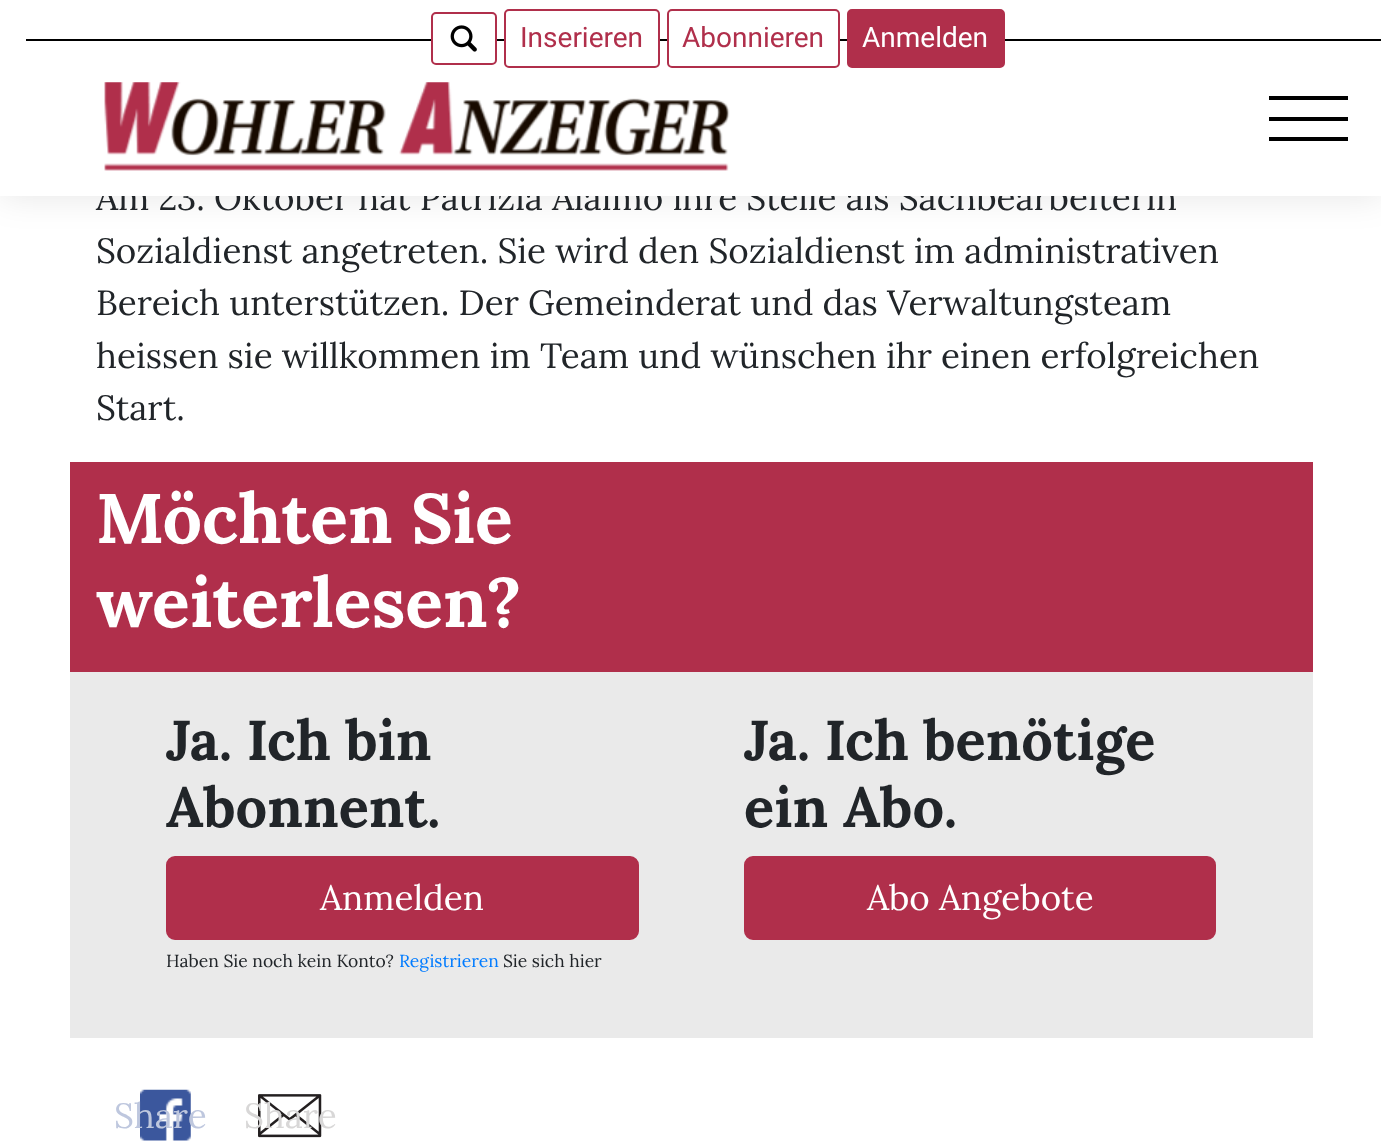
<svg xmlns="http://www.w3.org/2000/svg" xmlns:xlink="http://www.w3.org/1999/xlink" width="1381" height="1142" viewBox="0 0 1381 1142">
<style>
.cls-1{font:35px Lora;fill:#212529}
.cls-2{font:28px Roboto;fill:#ffffff}
.cls-3{font:28px Roboto;fill:#b02f4b}
.cls-4{font:bold 70px Lora;fill:#ffffff}
.cls-5{font:bold 56px Lora;fill:#212529}
.cls-6{font:35px Lora;fill:#ffffff}
.cls-7{font:17.5px Lora;fill:#212529}
.cls-8{font:17.5px Lora;fill:#007bff}
.cls-9{font:35px Lora;fill:#bec7de}
.cls-10{font:35px Lora;fill:#d8d7d7}
</style>
<rect width="100%" height="100%" fill="#ffffff"/>
<rect fill="#000000" fill-opacity="0.1" filter="blur(17.5px)" x="0" y="0" width="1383" height="196"/>
<rect fill="#b02f4b" x="70" y="462" width="1243" height="210"/>
<rect fill="#eaeaea" x="70" y="672" width="1243" height="366"/>
<rect fill="#b02f4b" stroke="#b02f4b" stroke-width="2" x="167" y="857" width="471" height="82" rx="8"/>
<rect fill="#b02f4b" stroke="#b02f4b" stroke-width="2" x="745" y="857" width="470" height="82" rx="8"/>
<image xlink:href="image2.png" x="140" y="1089" width="51" height="52"/>
<image xlink:href="image3.png" x="258" y="1094" width="64" height="44"/>
<text class="cls-1" x="96" y="210">Am 23. Oktober hat Patrizia Alaimo ihre Stelle als Sachbearbeiterin</text>
<rect fill="#ffffff" x="0" y="0" width="1381" height="196"/>
<rect fill="#000000" x="1269" y="137" width="79" height="4"/>
<rect fill="#000000" x="1269" y="117" width="79" height="4"/>
<rect fill="#000000" x="1269" y="96" width="79" height="4"/>
<image xlink:href="image1.png" x="104" y="82" width="626" height="89"/>
<rect fill="#000000" x="26" y="39" width="1355" height="2"/>
<rect fill="#b02f4b" stroke="#b02f4b" stroke-width="2" x="848" y="10" width="156" height="57" rx="4"/>
<text class="cls-2" x="862" y="47">Anmelden</text>
<rect fill="#ffffff" stroke="#b02f4b" stroke-width="2" x="668" y="10" width="171" height="57" rx="4"/>
<text class="cls-3" x="682" y="47">Abonnieren</text>
<rect fill="#ffffff" stroke="#b02f4b" stroke-width="2" x="505" y="10" width="154" height="57" rx="4"/>
<text class="cls-3" x="520" y="47">Inserieren</text>
<rect fill="#ffffff" stroke="#b02f4b" stroke-width="2" x="432" y="13" width="64" height="51" rx="4"/>
<image xlink:href="image0.png" x="450" y="25" width="27" height="27"/>
<text class="cls-1"><tspan x="96" y="263">Sozialdienst angetreten. Sie wird den Sozialdienst im administrativen</tspan><tspan x="96" y="315">Bereich unterstützen. Der Gemeinderat und das Verwaltungsteam</tspan><tspan x="96" y="368">heissen sie willkommen im Team und wünschen ihr einen erfolgreichen</tspan><tspan x="96" y="420">Start.</tspan></text>
<text class="cls-4"><tspan x="96" y="543">Möchten Sie</tspan><tspan x="96" y="627">weiterlesen?</tspan></text>
<text class="cls-5"><tspan x="166" y="760">Ja. Ich bin</tspan><tspan x="166" y="827">Abonnent.</tspan></text>
<text class="cls-6" x="320" y="910">Anmelden</text>
<text class="cls-7" x="166" y="967">Haben Sie noch kein Konto?</text>
<text class="cls-8" x="399" y="967">Registrieren</text>
<text class="cls-7" x="503" y="967">Sie sich hier</text>
<text class="cls-5"><tspan x="744" y="760">Ja. Ich benötige</tspan><tspan x="744" y="827">ein Abo.</tspan></text>
<text class="cls-6" x="867" y="910">Abo Angebote</text>
<text class="cls-9" x="114" y="1128">Share</text>
<text class="cls-10" x="244" y="1128">Share</text>
</svg>
